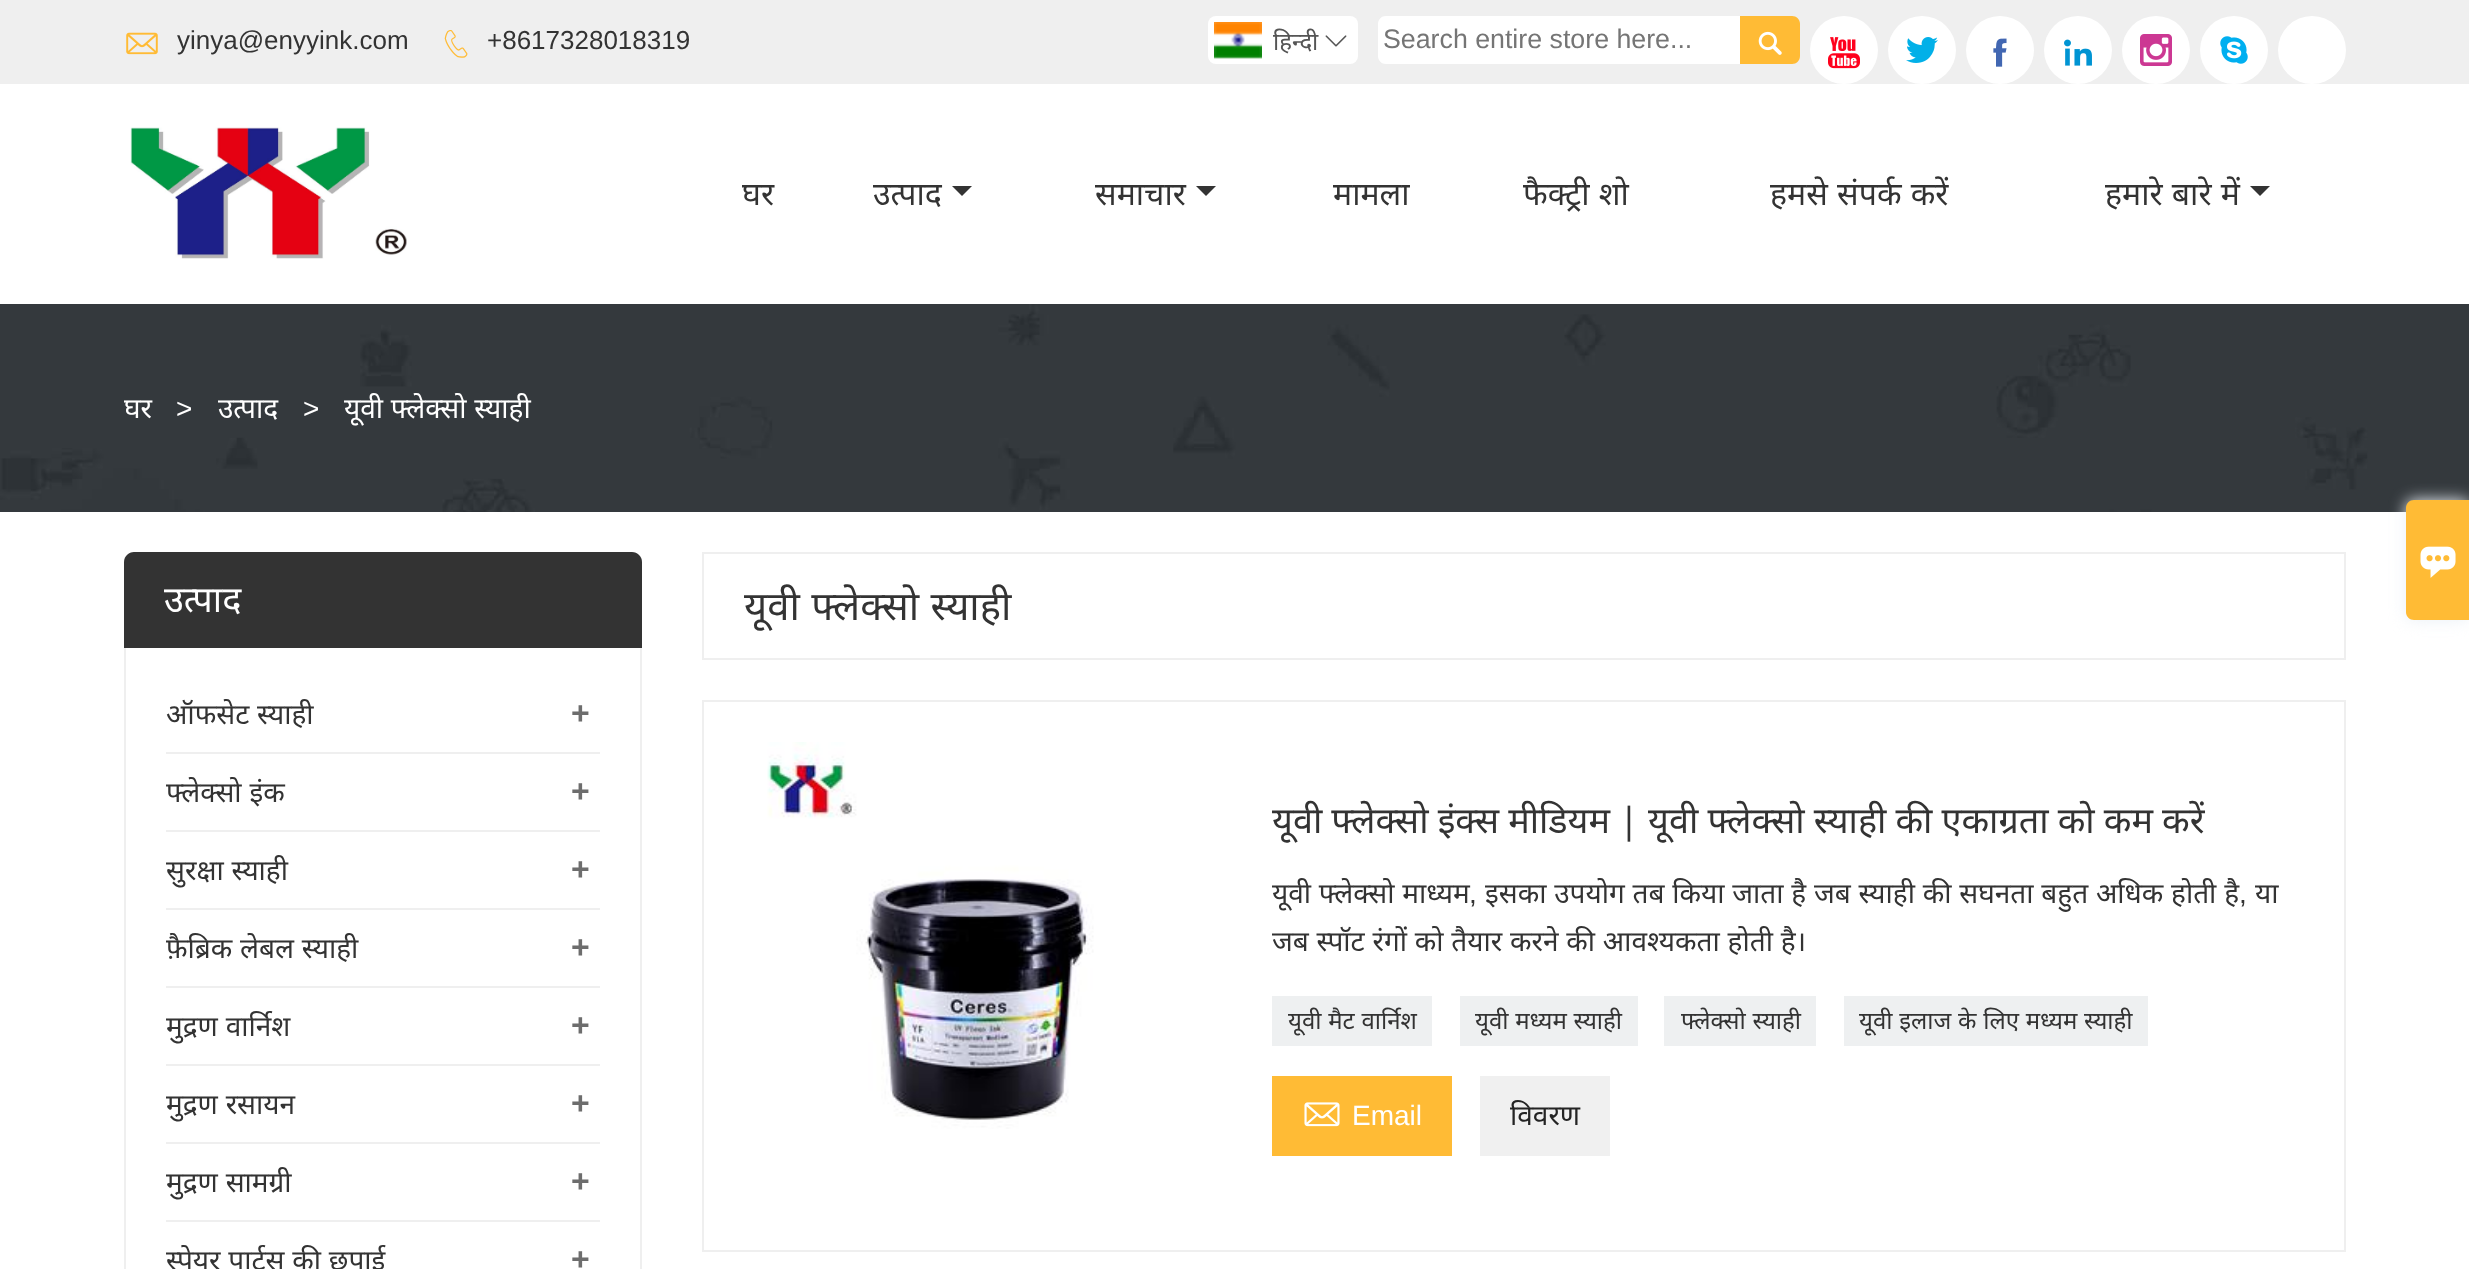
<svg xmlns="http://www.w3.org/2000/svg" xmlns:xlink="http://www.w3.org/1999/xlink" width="2469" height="1269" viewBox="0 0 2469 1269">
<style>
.cls-1{font:26px Liberation Sans;fill:#333333}
.cls-2{font:24px Noto Sans;fill:#555555}
.cls-3{font:26.75px Liberation Sans;fill:#757575}
.cls-4{font:32px Noto Sans;fill:#333333}
.cls-5{font:28px Noto Sans;fill:#ffffff}
.cls-6{font:28px Liberation Sans;fill:#ffffff}
.cls-7{font:36px Noto Sans;fill:#ffffff}
.cls-8{font:28px Noto Sans;fill:#333333}
.cls-9{font:bold 32px Liberation Sans;fill:#6d6d6d}
.cls-10{font:40px Noto Sans;fill:#333333}
.cls-11{font:36px Noto Sans;fill:#333333}
.cls-12{font:28px Liberation Sans;fill:#333333}
.cls-13{font:24px Noto Sans;fill:#333333}
.cls-14{font:28px Noto Sans;fill:#242424}
</style>
<defs>
<clipPath id="clip1"><rect x="166" y="754" width="434" height="78"/></clipPath>
<clipPath id="clip2"><rect x="166" y="832" width="434" height="78"/></clipPath>
<clipPath id="clip3"><rect x="166" y="910" width="434" height="78"/></clipPath>
<clipPath id="clip4"><rect x="166" y="988" width="434" height="78"/></clipPath>
<clipPath id="clip5"><rect x="166" y="1066" width="434" height="78"/></clipPath>
<clipPath id="clip6"><rect x="166" y="1144" width="434" height="78"/></clipPath>
<clipPath id="clip7"><rect x="166" y="1222" width="434" height="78"/></clipPath>
</defs>
<rect width="100%" height="100%" fill="#ffffff"/>
<rect fill="#efefef" x="0" y="0" width="2469" height="84"/>
<image xlink:href="image0.png" x="126" y="32" width="32" height="23"/>
<image xlink:href="image1.png" x="444" y="30" width="24" height="28"/>
<rect fill="#ffffff" x="1208" y="16" width="150" height="48" rx="8"/>
<image xlink:href="image2.png" x="1214" y="22" width="48" height="37"/>
<image xlink:href="image3.png" x="1325" y="35" width="22" height="12"/>
<path fill="#ffffff" d="M1386 16H1740V64H1386C1381.5 64 1378 60.5 1378 56V24C1378 19.5 1381.5 16 1386 16Z"/>
<path fill="#ffbb35" d="M1740 16H1792C1796.5 16 1800 19.5 1800 24V56C1800 60.5 1796.5 64 1792 64H1740Z"/>
<image xlink:href="image4.png" x="1758" y="31" width="24" height="24"/>
<circle fill="#ffffff" cx="1844" cy="50" r="34"/>
<image xlink:href="image5.png" x="1828" y="37" width="32" height="32"/>
<circle fill="#ffffff" cx="1922" cy="50" r="34"/>
<image xlink:href="image6.png" x="1906" y="37" width="32" height="26"/>
<circle fill="#ffffff" cx="2000" cy="50" r="34"/>
<image xlink:href="image7.png" x="1993" y="38" width="14" height="29"/>
<circle fill="#ffffff" cx="2078" cy="50" r="34"/>
<image xlink:href="image8.png" x="2064" y="39" width="28" height="27"/>
<circle fill="#ffffff" cx="2156" cy="50" r="34"/>
<image xlink:href="image9.png" x="2140" y="34" width="32" height="32"/>
<circle fill="#ffffff" cx="2234" cy="50" r="34"/>
<image xlink:href="image10.png" x="2220" y="36" width="28" height="28"/>
<circle fill="#ffffff" cx="2312" cy="50" r="34"/>
<image xlink:href="image11.png" x="130" y="127" width="277" height="132"/>
<path fill="#333333" d="M952 186H972L962 196Z"/>
<path fill="#333333" d="M1196 186H1216L1206 196Z"/>
<path fill="#333333" d="M2250 186H2270L2260 196Z"/>
<image xlink:href="image12.png" x="0" y="304" width="2469" height="208"/>
<path fill="#333333" d="M134 552H632C637.5 552 642 556.5 642 562V648H124V562C124 556.5 128.5 552 134 552Z"/>
<rect fill="#efefef" x="640" y="648" width="2" height="621"/>
<rect fill="#efefef" x="124" y="648" width="2" height="621"/>
<rect fill="#efefef" x="166" y="752" width="434" height="2"/>
<rect fill="#efefef" x="166" y="830" width="434" height="2"/>
<rect fill="#efefef" x="166" y="908" width="434" height="2"/>
<rect fill="#efefef" x="166" y="986" width="434" height="2"/>
<rect fill="#efefef" x="166" y="1064" width="434" height="2"/>
<rect fill="#efefef" x="166" y="1142" width="434" height="2"/>
<rect fill="#efefef" x="166" y="1220" width="434" height="2"/>
<rect fill="none" stroke="#efefef" stroke-width="2" x="703" y="553" width="1642" height="106"/>
<rect fill="none" stroke="#efefef" stroke-width="2" x="703" y="701" width="1642" height="550"/>
<image xlink:href="image13.png" x="767" y="742" width="327" height="387"/>
<rect fill="#eef0f1" x="1272" y="996" width="160" height="50"/>
<rect fill="#eef0f1" x="1460" y="996" width="178" height="50"/>
<rect fill="#eef0f1" x="1664" y="996" width="152" height="50"/>
<rect fill="#eef0f1" x="1844" y="996" width="304" height="50"/>
<rect fill="#ffbb35" x="1272" y="1076" width="180" height="80"/>
<image xlink:href="image14.png" x="1304" y="1102" width="36" height="25"/>
<rect fill="#f0f0f0" x="1480" y="1076" width="130" height="80"/>
<rect fill="#eaf0f6" filter="blur(8px)" x="2406" y="500" width="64" height="120" rx="8"/>
<path fill="#ffbb35" d="M2414 500H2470V620H2414C2409.5 620 2406 616.5 2406 612V508C2406 503.5 2409.5 500 2414 500Z"/>
<image xlink:href="image15.png" x="2420" y="546" width="36" height="32"/>
<text class="cls-1" x="177" y="49">yinya@enyyink.com</text>
<text class="cls-1" x="487" y="49">+8617328018319</text>
<text class="cls-2" x="1273" y="50">हिन्दी</text>
<text class="cls-3" x="1383" y="48">Search entire store here...</text>
<text class="cls-4" x="742" y="205">घर</text>
<text class="cls-4" x="873" y="205">उत्पाद</text>
<text class="cls-4" x="1095" y="205">समाचार</text>
<text class="cls-4" x="1333" y="205">मामला</text>
<text class="cls-4" x="1523" y="205" word-spacing="1">फैक्ट्री शो</text>
<text class="cls-4" x="1770" y="205" word-spacing="1">हमसे संपर्क करें</text>
<text class="cls-4" x="2105" y="205" word-spacing="1">हमारे बारे में</text>
<text class="cls-5" x="124" y="418">घर</text>
<text class="cls-6" x="176" y="418">&gt;</text>
<text class="cls-5" x="218" y="418">उत्पाद</text>
<text class="cls-6" x="303" y="418">&gt;</text>
<text class="cls-5" x="344" y="418" word-spacing="0.5">यूवी फ्लेक्सो स्याही</text>
<text class="cls-7" x="164" y="612">उत्पाद</text>
<text class="cls-8" x="166" y="724" word-spacing="0.5">ऑफसेट स्याही</text>
<text class="cls-9" x="571" y="724">+</text>
<g clip-path="url(#clip1)">
<text class="cls-8" x="166" y="802" word-spacing="0.5">फ्लेक्सो इंक</text>
</g>
<text class="cls-9" x="571" y="802">+</text>
<g clip-path="url(#clip2)">
<text class="cls-8" x="166" y="880" word-spacing="0.5">सुरक्षा स्याही</text>
</g>
<text class="cls-9" x="571" y="880">+</text>
<g clip-path="url(#clip3)">
<text class="cls-8" x="166" y="958" word-spacing="0.5">फ़ैब्रिक लेबल स्याही</text>
</g>
<text class="cls-9" x="571" y="958">+</text>
<g clip-path="url(#clip4)">
<text class="cls-8" x="166" y="1036" word-spacing="0.5">मुद्रण वार्निश</text>
</g>
<text class="cls-9" x="571" y="1036">+</text>
<g clip-path="url(#clip5)">
<text class="cls-8" x="166" y="1114" word-spacing="0.5">मुद्रण रसायन</text>
</g>
<text class="cls-9" x="571" y="1114">+</text>
<g clip-path="url(#clip6)">
<text class="cls-8" x="166" y="1192" word-spacing="0.5">मुद्रण सामग्री</text>
</g>
<text class="cls-9" x="571" y="1192">+</text>
<g clip-path="url(#clip7)">
<text class="cls-8" x="166" y="1270" word-spacing="0.5">स्पेयर पार्ट्स की छपाई</text>
</g>
<text class="cls-9" x="571" y="1270">+</text>
<text class="cls-10" x="744" y="620" word-spacing="1">यूवी फ्लेक्सो स्याही</text>
<text class="cls-11" x="1272" y="833" word-spacing="-0.25">यूवी फ्लेक्सो इंक्स मीडियम | यूवी फ्लेक्सो स्याही की एकाग्रता को कम करें</text>
<text class="cls-8" x="1272" y="903" word-spacing="0.5">यूवी फ्लेक्सो माध्यम</text>
<text class="cls-12" x="1469" y="903">,</text>
<text class="cls-8" x="1485" y="903" word-spacing="0.5">इसका उपयोग तब किया जाता है जब स्याही की सघनता बहुत अधिक होती है</text>
<text class="cls-12" x="2239" y="903">,</text>
<text class="cls-8" x="2255" y="903">या</text>
<text class="cls-8" x="1272" y="951" word-spacing="0.5">जब स्पॉट रंगों को तैयार करने की आवश्यकता होती है।</text>
<text class="cls-13" x="1288" y="1029" word-spacing="0.5">यूवी मैट वार्निश</text>
<text class="cls-13" x="1475" y="1029" word-spacing="0.5">यूवी मध्यम स्याही</text>
<text class="cls-13" x="1681" y="1029" word-spacing="0.5">फ्लेक्सो स्याही</text>
<text class="cls-13" x="1859" y="1029" word-spacing="0.5">यूवी इलाज के लिए मध्यम स्याही</text>
<text class="cls-6" x="1352" y="1125">Email</text>
<text class="cls-14" x="1510" y="1125">विवरण</text>
</svg>
